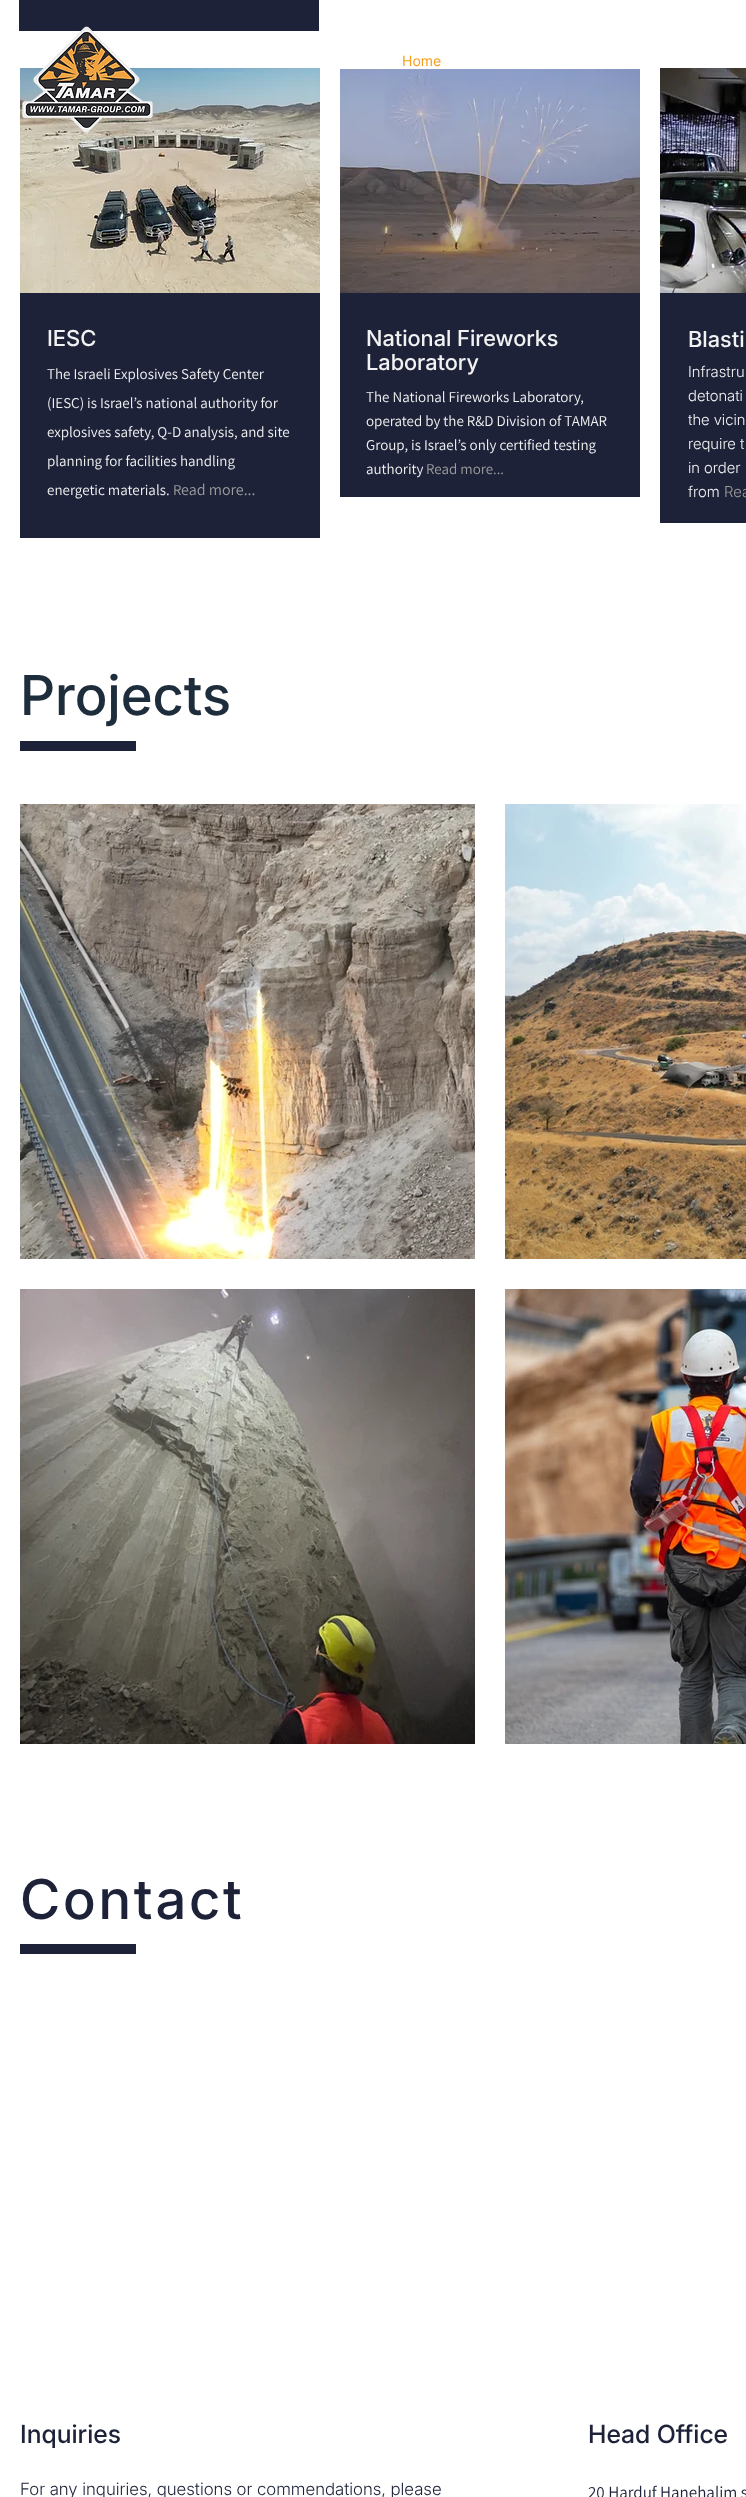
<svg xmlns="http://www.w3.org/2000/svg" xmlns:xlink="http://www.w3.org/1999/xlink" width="746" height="2497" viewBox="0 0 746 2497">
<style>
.cls-1{font:14px Inter;fill:#f99e1d}
.cls-2{font:500 22px Inter;fill:#f2f2f2}
.cls-3{font:15px Assistant;fill:#f2f2f2}
.cls-4{font:15px Assistant;fill:#9d9d9d}
.cls-5{font:16px Assistant;fill:#9d9d9d}
.cls-6{font:300 15px Inter;fill:#f2f2f2}
.cls-7{font:300 15px Inter;fill:#9d9d9d}
.cls-8{font:500 55px Inter;fill:#1e2d3b}
.cls-9{font:500 55px Inter;letter-spacing:2.75px;fill:#1d2239}
.cls-10{font:500 25px Inter;fill:#1d2239}
.cls-11{font:300 17px Inter;fill:#1d2239}
.cls-12{font:17px Assistant;fill:#1d2239}
</style>
<rect width="100%" height="100%" fill="#ffffff"/>
<rect fill="#1d2239" x="19" y="0" width="300" height="31"/>
<image xlink:href="image1.png" x="20" y="68" width="300" height="225"/>
<image xlink:href="image0.png" x="22" y="26" width="131" height="107"/>
<image xlink:href="image2.png" x="340" y="69" width="300" height="224"/>
<image xlink:href="image3.png" x="660" y="68" width="86" height="225"/>
<rect fill="#1d2239" x="20" y="293" width="300" height="245"/>
<rect fill="#1d2239" x="340" y="293" width="300" height="204"/>
<rect fill="#1d2239" x="660" y="293" width="86" height="230"/>
<rect fill="#1d2239" x="20" y="741" width="116" height="10"/>
<image xlink:href="image4.png" x="20" y="804" width="455" height="455"/>
<image xlink:href="image5.png" x="505" y="804" width="241" height="455"/>
<image xlink:href="image6.png" x="20" y="1289" width="455" height="455"/>
<image xlink:href="image7.png" x="505" y="1289" width="241" height="455"/>
<rect fill="#1d2239" x="20" y="1944" width="116" height="10"/>
<text class="cls-1" x="402" y="66">Home</text>
<text class="cls-2" x="47" y="346">IESC</text>
<text class="cls-3"><tspan x="47" y="379">The Israeli Explosives Safety Center</tspan><tspan x="47" y="408">(IESC) is Israel’s national authority for</tspan><tspan x="47" y="437">explosives safety, Q-D analysis, and site</tspan><tspan x="47" y="466">planning for facilities handling</tspan><tspan x="47" y="495">energetic materials.</tspan></text>
<text class="cls-4" x="173" y="495">R</text>
<text class="cls-5" x="181" y="495">ead more...</text>
<text class="cls-2"><tspan x="366" y="346">National Fireworks</tspan><tspan x="366" y="370">Laboratory</tspan></text>
<text class="cls-3"><tspan x="366" y="402">The National Fireworks Laboratory,</tspan><tspan x="366" y="426">operated by the R&amp;D Division of TAMAR</tspan><tspan x="366" y="450">Group, is Israel’s only certified testing</tspan><tspan x="366" y="474">authority</tspan></text>
<text class="cls-4" x="426" y="474">Read more...</text>
<text class="cls-2" x="688" y="347">Blasti</text>
<text class="cls-6"><tspan x="688" y="377">Infrastru</tspan><tspan x="688" y="401">detonati</tspan><tspan x="688" y="425">the vicin</tspan><tspan x="688" y="449">require t</tspan><tspan x="688" y="473">in order</tspan><tspan x="688" y="497">from</tspan></text>
<text class="cls-7" x="724" y="497">Rea</text>
<text class="cls-8" x="20" y="715">Projects</text>
<text class="cls-9" x="20" y="1919">Contact</text>
<text class="cls-10" x="20" y="2443">Inquiries</text>
<text class="cls-10" x="588" y="2443">Head Office</text>
<text class="cls-11" x="20" y="2495">For any inquiries, questions or commendations, please</text>
<text class="cls-12" x="588" y="2498">20 Harduf Hanehalim s</text>
</svg>
